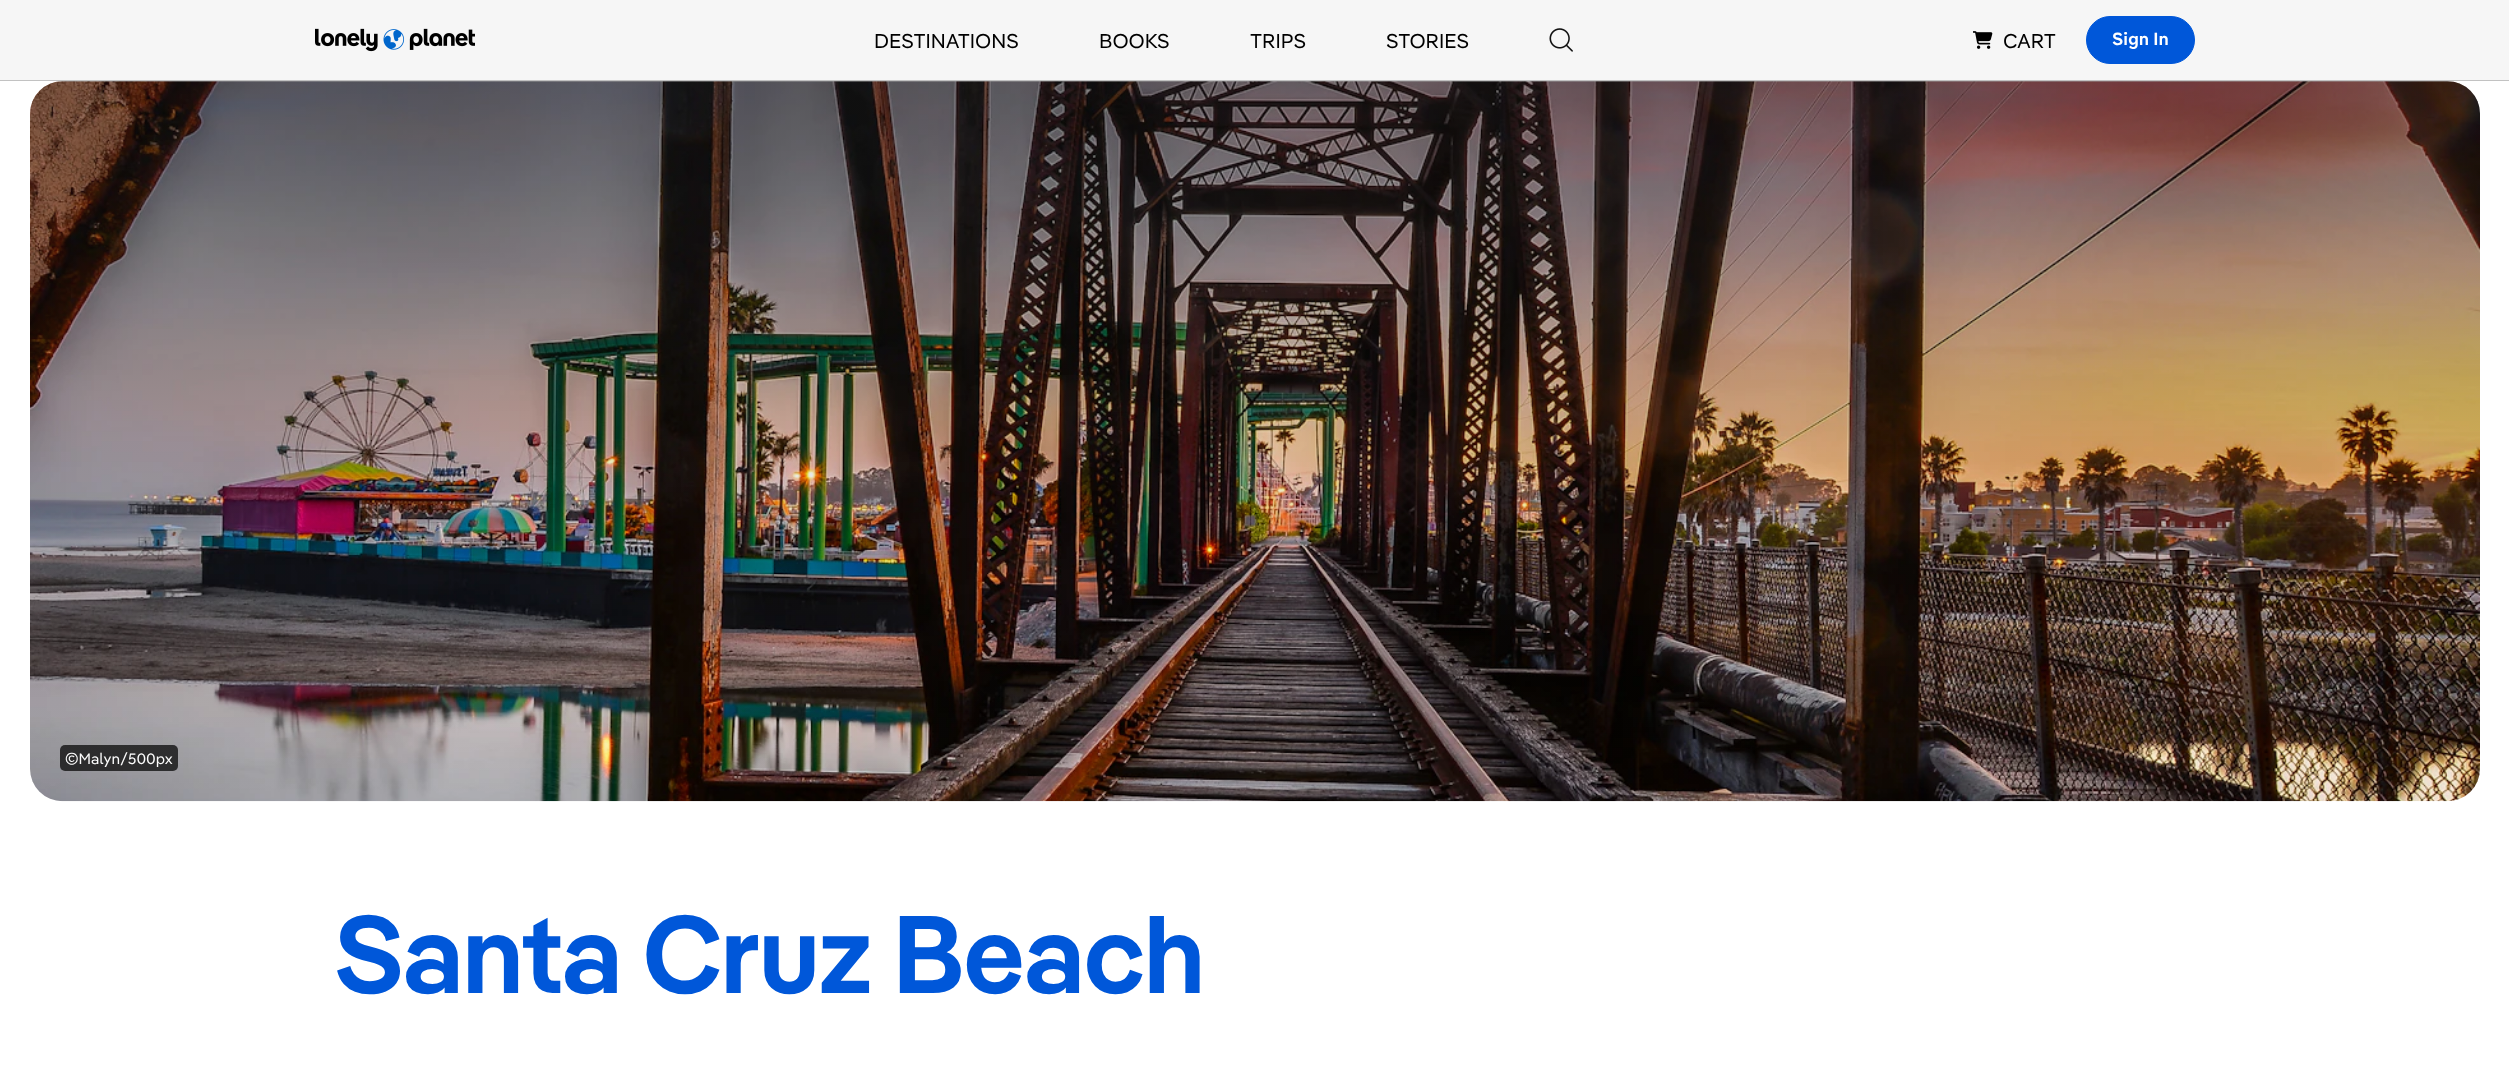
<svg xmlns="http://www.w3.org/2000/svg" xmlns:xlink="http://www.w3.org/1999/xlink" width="2509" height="1066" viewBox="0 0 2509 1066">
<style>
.cls-1{font:20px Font;fill:#000000}
.cls-2{font:600 17.5px 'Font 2';fill:#ffffff}
.cls-3{font:15px Font;fill:#ffffff}
.cls-4{font:600 110px Font;fill:#0057d9}
</style>
<defs>
<linearGradient id="g1" gradientUnits="userSpaceOnUse" x1="1255" y1="81" x2="1255" y2="801"><stop offset="0" stop-color="#121212" stop-opacity="0.4"/><stop offset="0.5" stop-color="#121212" stop-opacity="0.1"/><stop offset="1" stop-color="#121212" stop-opacity="0"/></linearGradient>
</defs>
<rect width="100%" height="100%" fill="#ffffff"/>
<rect fill="#f6f6f6" x="0" y="0" width="2509" height="80"/>
<rect fill="#c2c2c2" x="0" y="80" width="2509" height="1"/>
<image xlink:href="image0.png" x="315" y="28" width="160" height="24"/>
<image xlink:href="image1.png" x="1549" y="28" width="24" height="24"/>
<image xlink:href="image2.png" x="1973" y="31" width="20" height="18"/>
<rect fill="#0057d9" stroke="#0057d9" x="2086.5" y="16.5" width="108" height="47" rx="23.5"/>
<image xlink:href="image3.png" x="30" y="81" width="2450" height="721"/>
<rect fill="#121212" fill-opacity="0.8" x="60" y="745" width="118" height="26" rx="5"/>
<text class="cls-1" x="874" y="48">DESTINATIONS</text>
<text class="cls-1" x="1099" y="48">BOOKS</text>
<text class="cls-1" x="1250" y="48">TRIPS</text>
<text class="cls-1" x="1386" y="48">STORIES</text>
<text class="cls-1" x="2003" y="48">CART</text>
<text class="cls-2" x="2112" y="45">Sign In</text>
<text class="cls-3" x="65" y="764">©Malyn/500px</text>
<rect fill="url(#g1)" x="30" y="81" width="2450" height="720" rx="33"/>
<text class="cls-4" x="335" y="993">Santa Cruz Beach</text>
</svg>
